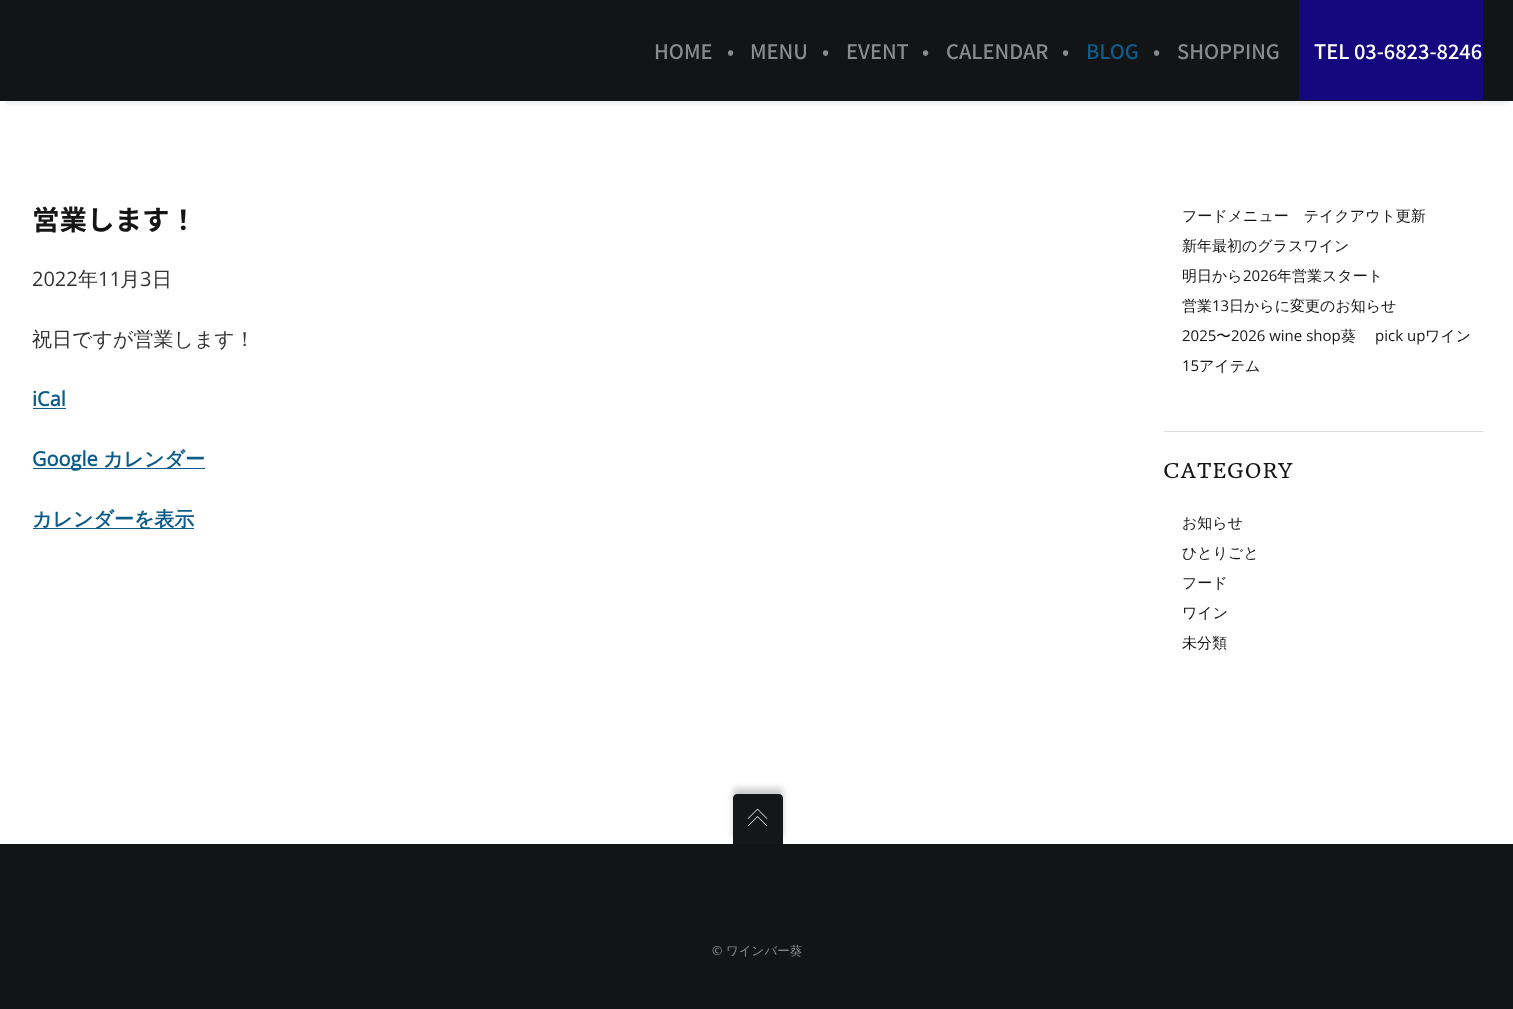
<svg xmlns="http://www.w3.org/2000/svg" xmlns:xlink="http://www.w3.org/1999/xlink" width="1513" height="1009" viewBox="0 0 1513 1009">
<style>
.cls-1{font:500 20px Noto Sans JP;fill:#898a8b}
.cls-2{font:500 20px Noto Sans JP;fill:#0e5c8a}
.cls-3{font:500 20px Noto Sans JP;fill:#ffffff}
.cls-4{font:bold 27.5px Noto Sans JP;fill:#151515}
.cls-5{font:20px Open Sans;fill:#333333}
.cls-6{font:500 20px WenQuanYi Zen Hei;fill:#333333}
.cls-7{font:bold 20px Open Sans;fill:#0e5c8a}
.cls-8{font:bold 20px WenQuanYi Zen Hei;fill:#0e5c8a}
.cls-9{font:500 15px WenQuanYi Zen Hei;fill:#151515}
.cls-10{font:15px Open Sans;fill:#151515}
.cls-11{font:20px HeadlandOne;letter-spacing:1px;fill:#151515}
.cls-12{font:12.5px Open Sans;fill:#898a8b}
.cls-13{font:500 12.5px WenQuanYi Zen Hei;fill:#898a8b}
</style>
<defs>
<clipPath id="clip1"><rect x="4" y="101" width="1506" height="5"/></clipPath>
</defs>
<rect width="100%" height="100%" fill="#ffffff"/>
<rect fill="#131416" x="0" y="0" width="1513" height="101"/>
<g clip-path="url(#clip1)">
<rect fill="#000000" fill-opacity="0.1" filter="blur(3px)" x="5" y="11" width="1504" height="92"/>
</g>
<rect fill="#15077e" x="1299" y="0" width="184" height="100"/>
<rect fill="#0e5c8a" x="33" y="408" width="33" height="1"/>
<rect fill="#0e5c8a" x="33" y="468" width="172" height="1"/>
<rect fill="#0e5c8a" x="33" y="528" width="161" height="1"/>
<rect fill="#dddddd" x="1164" y="431" width="319" height="1"/>
<rect fill="#131416" x="0" y="844" width="1513" height="165"/>
<rect fill="#000000" fill-opacity="0.2" filter="blur(3px)" x="733" y="788" width="50" height="50" rx="4"/>
<path fill="#141618" d="M737 794H779C781 794 783 796 783 798V844H733V798C733 796 735 794 737 794Z"/>
<image xlink:href="image0.png" x="747" y="808" width="21" height="19"/>
<text class="cls-1" x="654" y="59">HOME</text>
<text class="cls-1" x="727" y="59">•</text>
<text class="cls-1" x="750" y="59">MENU</text>
<text class="cls-1" x="822" y="59">•</text>
<text class="cls-1" x="846" y="59">EVENT</text>
<text class="cls-1" x="922" y="59">•</text>
<text class="cls-1" x="946" y="59">CALENDAR</text>
<text class="cls-1" x="1062" y="59">•</text>
<text class="cls-2" x="1086" y="59">BLOG</text>
<text class="cls-1" x="1153" y="59">•</text>
<text class="cls-1" x="1177" y="59">SHOPPING</text>
<text class="cls-3" x="1314" y="59">TEL 03-6823-8246</text>
<text class="cls-4" x="32" y="230">営業します！</text>
<text class="cls-5" x="32" y="286">2022</text>
<text class="cls-6" x="78" y="286">年</text>
<text class="cls-5" x="98" y="286">11</text>
<text class="cls-6" x="120" y="286">月</text>
<text class="cls-5" x="140" y="286">3</text>
<text class="cls-6" x="152" y="286">日</text>
<text class="cls-6" x="32" y="346">祝日ですが営業します！</text>
<text class="cls-7" x="32" y="406">iCal</text>
<text class="cls-7" x="32" y="466">Google</text>
<text class="cls-8" x="103" y="466">カレンダー</text>
<text class="cls-8" x="32" y="526">カレンダーを表示</text>
<text class="cls-9" x="1182" y="221">フードメニュー　テイクアウト更新</text>
<text class="cls-9" x="1182" y="251">新年最初のグラスワイン</text>
<text class="cls-9" x="1182" y="281">明日から</text>
<text class="cls-10" x="1243" y="281">2026</text>
<text class="cls-9" x="1277" y="281">年営業スタート</text>
<text class="cls-9" x="1182" y="311">営業</text>
<text class="cls-10" x="1212" y="311">13</text>
<text class="cls-9" x="1229" y="311">日からに変更のお知らせ</text>
<text class="cls-10" x="1182" y="341">2025</text>
<text class="cls-9" x="1216" y="341">〜</text>
<text class="cls-10" x="1231" y="341">2026 wine shop</text>
<text class="cls-9" x="1341" y="341">葵</text>
<text class="cls-10" x="1375" y="341">pick up</text>
<text class="cls-9" x="1425" y="341">ワイン</text>
<text class="cls-10" x="1182" y="371">15</text>
<text class="cls-9" x="1199" y="371">アイテム</text>
<text class="cls-11" x="1163" y="478">CATEGORY</text>
<text class="cls-9" x="1182" y="528">お知らせ</text>
<text class="cls-9" x="1182" y="558">ひとりごと</text>
<text class="cls-9" x="1182" y="588">フード</text>
<text class="cls-9" x="1182" y="618">ワイン</text>
<text class="cls-9" x="1182" y="648">未分類</text>
<text class="cls-12" x="712" y="955">©</text>
<text class="cls-13" x="726" y="955">ワインバー葵</text>
</svg>
